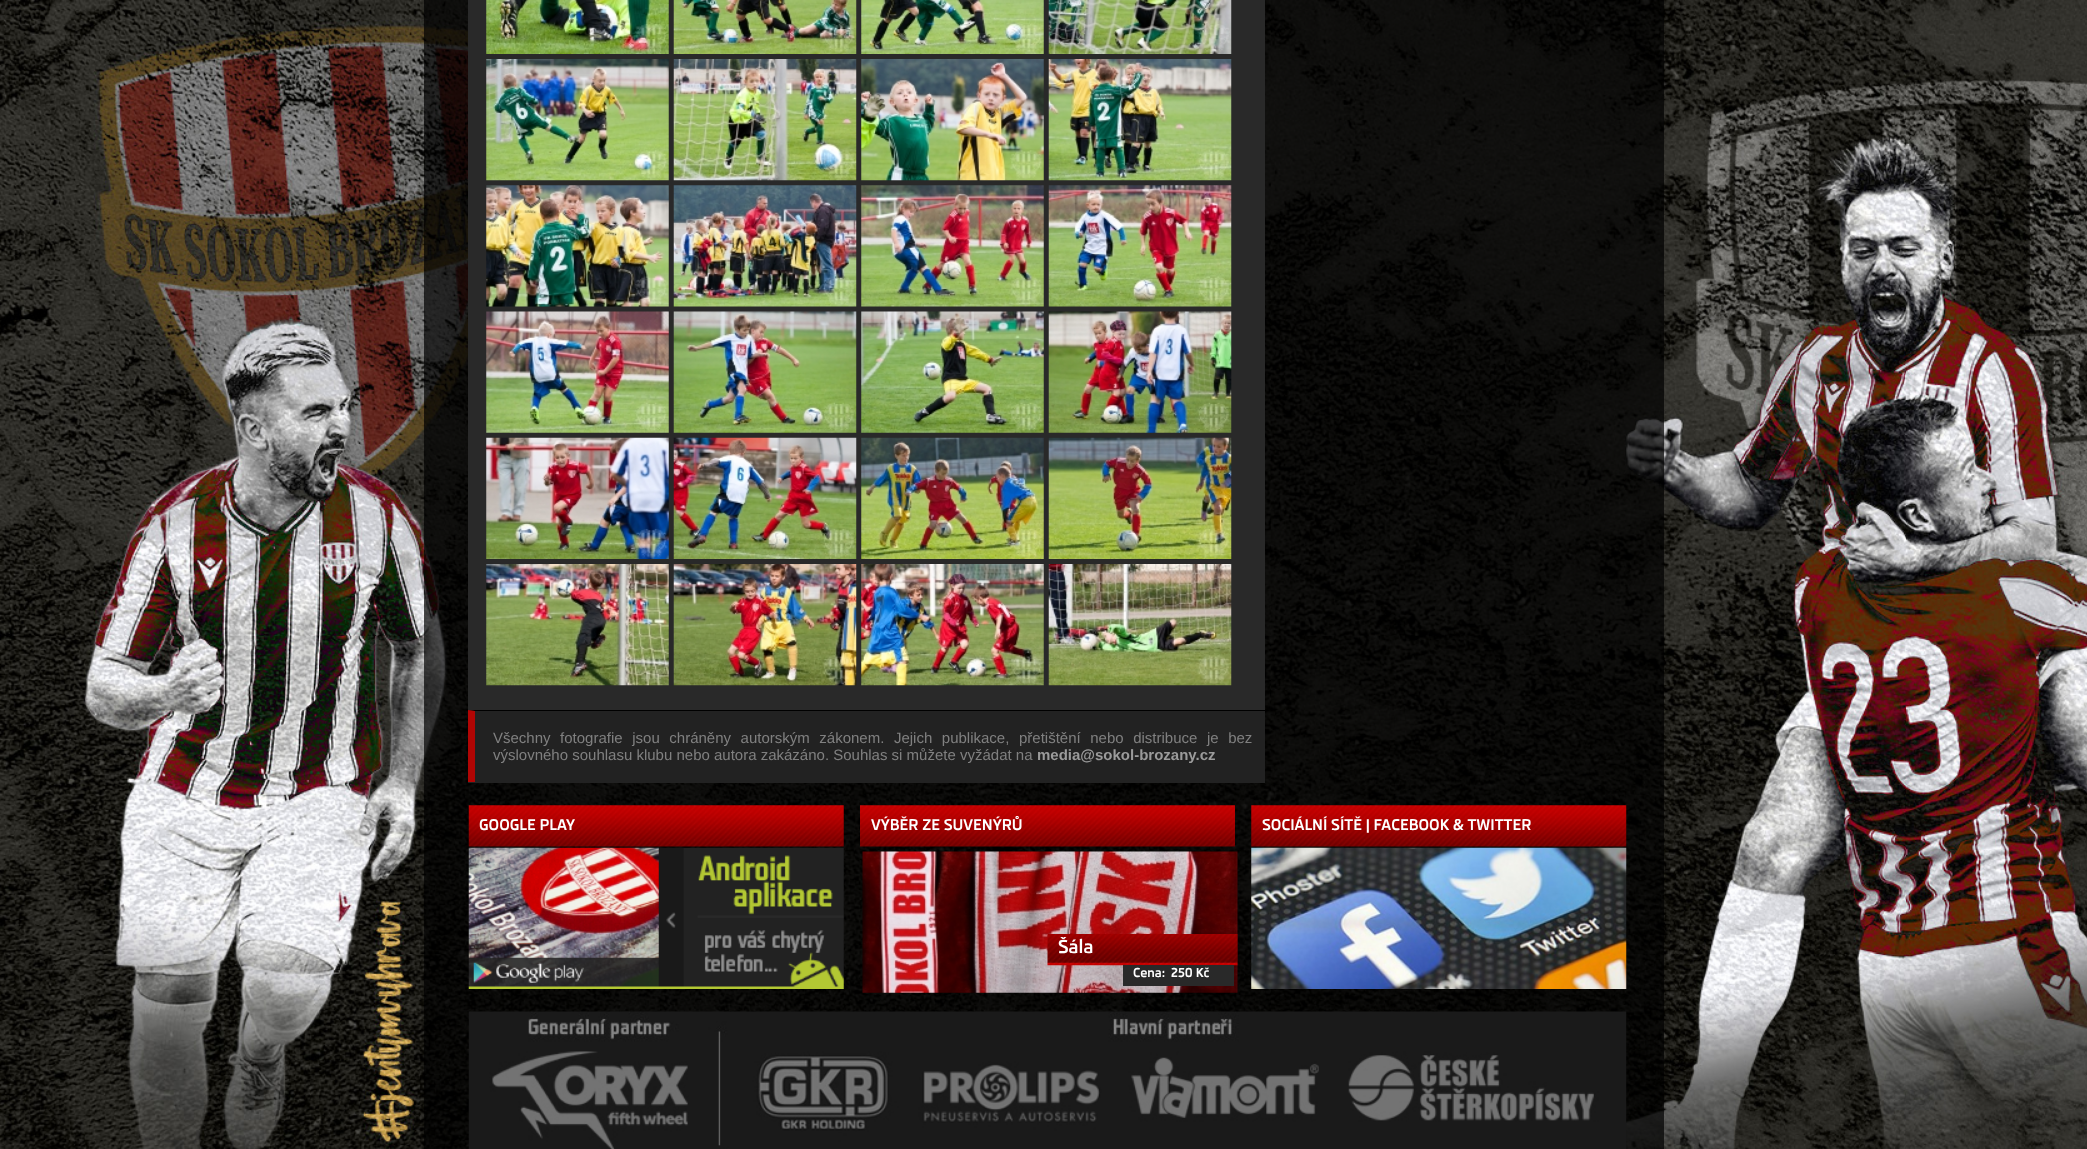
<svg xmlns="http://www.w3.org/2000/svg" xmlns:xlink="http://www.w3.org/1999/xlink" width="2087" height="1149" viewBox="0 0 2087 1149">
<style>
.cls-1{font:15px Liberation Sans;fill:#808080}
.cls-2{font:bold 15px Liberation Sans;fill:#9b9b9b}
.cls-3{font:bold 15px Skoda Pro;fill:#ffffff}
.cls-4{font:bold 18px Skoda Pro;fill:#ffffff}
.cls-5{font:bold 12.5px Skoda Pro;fill:#ffffff}
</style>
<rect width="100%" height="100%" fill="#ffffff"/>
<image xlink:href="image0.png" x="0" y="0" width="2087" height="1149"/>
<rect fill="#000000" fill-opacity="0.7" x="424" y="0" width="1240" height="1149"/>
<rect fill="#292929" x="468" y="0" width="797" height="710"/>
<image xlink:href="image1.png" x="486" y="0" width="183" height="54"/>
<image xlink:href="image2.png" x="673" y="0" width="184" height="54"/>
<image xlink:href="image3.png" x="861" y="0" width="183" height="54"/>
<image xlink:href="image4.png" x="1048" y="0" width="184" height="54"/>
<image xlink:href="image5.png" x="486" y="59" width="183" height="122"/>
<image xlink:href="image6.png" x="673" y="59" width="184" height="122"/>
<image xlink:href="image7.png" x="861" y="59" width="183" height="122"/>
<image xlink:href="image8.png" x="1048" y="59" width="184" height="122"/>
<image xlink:href="image9.png" x="486" y="185" width="183" height="122"/>
<image xlink:href="image10.png" x="673" y="185" width="184" height="122"/>
<image xlink:href="image11.png" x="861" y="185" width="183" height="122"/>
<image xlink:href="image12.png" x="1048" y="185" width="184" height="122"/>
<image xlink:href="image13.png" x="486" y="311" width="183" height="122"/>
<image xlink:href="image14.png" x="673" y="311" width="184" height="122"/>
<image xlink:href="image15.png" x="861" y="311" width="183" height="122"/>
<image xlink:href="image16.png" x="1048" y="311" width="184" height="122"/>
<image xlink:href="image17.png" x="486" y="437" width="183" height="122"/>
<image xlink:href="image18.png" x="673" y="437" width="184" height="122"/>
<image xlink:href="image19.png" x="861" y="437" width="183" height="122"/>
<image xlink:href="image20.png" x="1048" y="437" width="184" height="122"/>
<image xlink:href="image21.png" x="486" y="564" width="183" height="122"/>
<image xlink:href="image22.png" x="673" y="564" width="184" height="122"/>
<image xlink:href="image23.png" x="861" y="564" width="183" height="122"/>
<image xlink:href="image24.png" x="1048" y="564" width="184" height="122"/>
<rect fill="#222222" x="468" y="710" width="797" height="73"/>
<path fill="#000000" d="M468 710H1265V711H475Z"/>
<path fill="#b10504" d="M468 782V710L475 711V782Z"/>
<image xlink:href="image25.png" x="468" y="805" width="376" height="42"/>
<image xlink:href="image26.png" x="468" y="847" width="376" height="142"/>
<image xlink:href="image27.png" x="860" y="805" width="375" height="42"/>
<image xlink:href="image28.png" x="862" y="851" width="376" height="142"/>
<image xlink:href="image29.png" x="1047" y="934" width="191" height="32"/>
<rect fill="#292929" x="1123" y="965" width="111" height="21"/>
<image xlink:href="image30.png" x="1251" y="805" width="376" height="42"/>
<image xlink:href="image31.png" x="1251" y="847" width="376" height="142"/>
<image xlink:href="image32.png" x="468" y="1011" width="1159" height="138"/>
<text class="cls-1"><tspan x="493" y="743" word-spacing="5.4">Všechny fotografie jsou chráněny autorským zákonem. Jejich publikace, přetištění nebo distribuce je bez</tspan><tspan x="493" y="760">výslovného souhlasu klubu nebo autora zakázáno. Souhlas si můžete vyžádat na</tspan></text>
<text class="cls-2" x="1037" y="760">media@sokol-brozany.cz</text>
<text class="cls-3" x="479" y="830">GOOGLE PLAY</text>
<text class="cls-3" x="871" y="830">VÝBĚR ZE SUVENÝRŮ</text>
<text class="cls-4" x="1058" y="953">Šála</text>
<text class="cls-5" x="1133" y="977">Cena:</text>
<text class="cls-5" x="1171" y="977">250 Kč</text>
<text class="cls-3" x="1262" y="830">SOCIÁLNÍ SÍTĚ | FACEBOOK &amp; TWITTER</text>
</svg>
